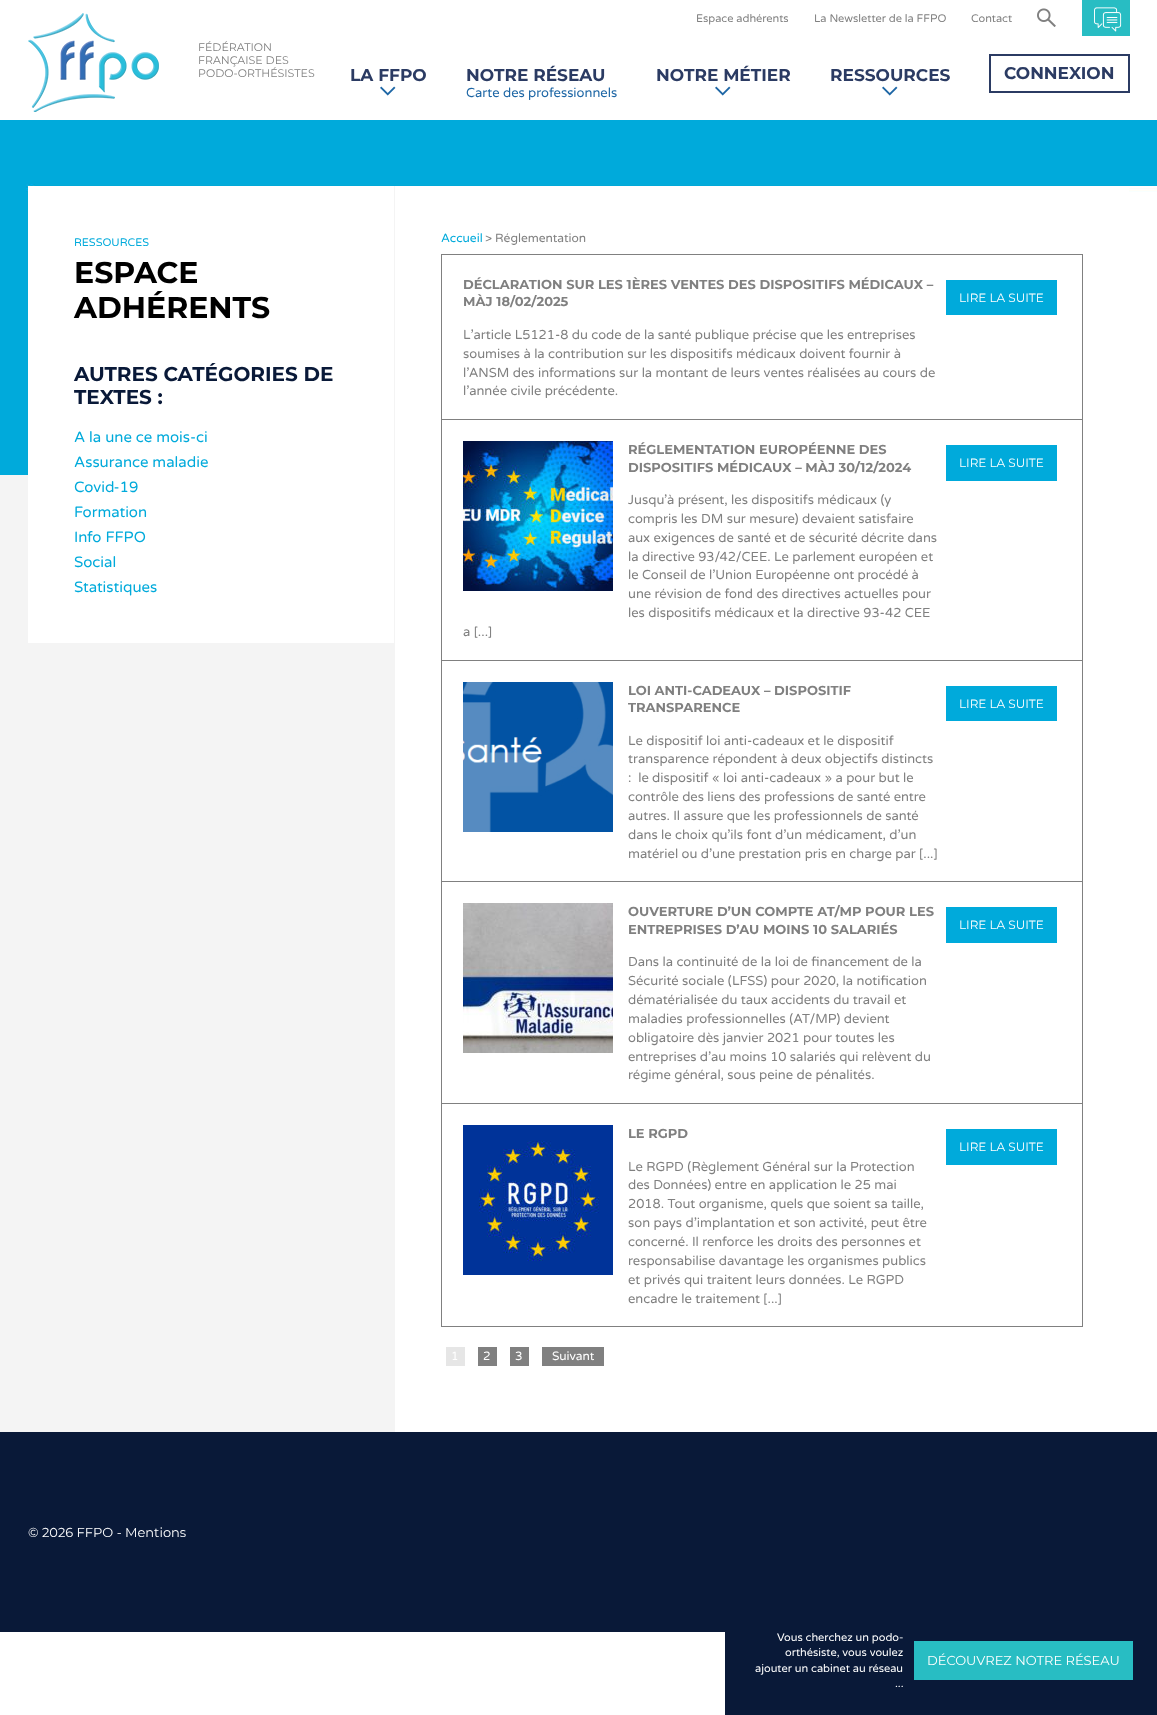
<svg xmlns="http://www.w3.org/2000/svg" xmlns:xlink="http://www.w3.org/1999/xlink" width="1157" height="1715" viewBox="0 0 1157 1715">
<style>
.cls-1{font:11px Varela Round;fill:#808080}
.cls-2{font:11px Montserrat;fill:#808080}
.cls-3{font:bold 17px Montserrat;fill:#2b3b63}
.cls-4{font:13px Varela Round;fill:#1d66a5}
.cls-5{font:11px Varela Round;fill:#00aadb}
.cls-6{font:bold 30px Montserrat;fill:#000000}
.cls-7{font:bold 20px Montserrat;fill:#091938}
.cls-8{font:15px Varela Round;fill:#00aadb}
.cls-9{font:12px Varela Round;fill:#00aadb}
.cls-10{font:12px Varela Round;fill:#808080}
.cls-11{font:bold 13px Montserrat;fill:#808080}
.cls-12{font:12px Montserrat;fill:#ffffff}
.cls-13{font:13px Varela Round;fill:#808080}
.cls-14{font:12px Varela Round;fill:#ffffff}
.cls-15{font:13px Montserrat;fill:#ffffff}
.cls-16{font:11px Varela Round;fill:#ffffff}
</style>
<rect width="100%" height="100%" fill="#ffffff"/>
<rect fill="#f4f4f4" x="0" y="475" width="395" height="957"/>
<image xlink:href="image0.png" x="1037" y="8" width="19" height="19"/>
<rect fill="#28bdc3" x="1082" y="0" width="48" height="36"/>
<image xlink:href="image1.png" x="1094" y="7" width="28" height="25"/>
<image xlink:href="image2.png" x="28" y="13" width="131" height="99"/>
<image xlink:href="image3.png" x="380" y="86" width="16" height="10"/>
<image xlink:href="image3.png" x="715" y="86" width="16" height="10"/>
<image xlink:href="image3.png" x="882" y="86" width="16" height="10"/>
<rect fill="none" stroke="#2b3b63" stroke-width="2" x="990" y="55" width="139" height="37"/>
<image xlink:href="image4.png" x="0" y="120" width="1157" height="355"/>
<rect fill="#ffffff" x="28" y="186" width="366" height="457"/>
<rect fill="#f4f4f4" x="394" y="186" width="1" height="289"/>
<rect fill="#ffffff" x="395" y="188" width="734" height="4"/>
<rect fill="none" stroke="#808080" x="441.5" y="254.5" width="641" height="1072"/>
<rect fill="#00aadb" x="946" y="280" width="111" height="35"/>
<rect fill="#808080" x="442" y="419" width="640" height="1"/>
<image xlink:href="image5.png" x="463" y="441" width="150" height="150"/>
<rect fill="#00aadb" x="946" y="445" width="111" height="36"/>
<rect fill="#808080" x="442" y="660" width="640" height="1"/>
<image xlink:href="image6.png" x="463" y="682" width="150" height="150"/>
<rect fill="#00aadb" x="946" y="686" width="111" height="35"/>
<rect fill="#808080" x="442" y="881" width="640" height="1"/>
<image xlink:href="image7.png" x="463" y="903" width="150" height="150"/>
<rect fill="#00aadb" x="946" y="907" width="111" height="36"/>
<rect fill="#808080" x="442" y="1103" width="640" height="1"/>
<image xlink:href="image8.png" x="463" y="1125" width="150" height="150"/>
<rect fill="#00aadb" x="946" y="1129" width="111" height="36"/>
<rect fill="#e6e6e6" x="446" y="1347" width="19" height="19"/>
<rect fill="#808080" x="478" y="1347" width="19" height="19"/>
<rect fill="#808080" x="510" y="1347" width="19" height="19"/>
<rect fill="#808080" x="542" y="1347" width="62" height="19"/>
<rect fill="#091938" x="0" y="1432" width="1157" height="200"/>
<rect fill="#091938" x="725" y="1632" width="432" height="83"/>
<rect fill="#28bdc3" x="914" y="1641" width="219" height="39"/>
<text class="cls-1" x="696" y="22">Espace adhérents</text>
<text class="cls-1" x="814" y="22">La Newsletter de la FFPO</text>
<text class="cls-1" x="971" y="22">Contact</text>
<text class="cls-2"><tspan x="198" y="51">FÉDÉRATION</tspan><tspan x="198" y="64">FRANÇAISE DES</tspan><tspan x="198" y="77">PODO-ORTHÉSISTES</tspan></text>
<text class="cls-3" x="350" y="81">LA FFPO</text>
<text class="cls-3" x="466" y="81">NOTRE RÉSEAU</text>
<text class="cls-4" x="466" y="97">Carte des professionnels</text>
<text class="cls-3" x="656" y="81">NOTRE MÉTIER</text>
<text class="cls-3" x="830" y="81">RESSOURCES</text>
<text class="cls-3" x="1004" y="79">CONNEXION</text>
<text class="cls-5" x="74" y="246">RESSOURCES</text>
<text class="cls-6"><tspan x="74" y="283">ESPACE</tspan><tspan x="74" y="318">ADHÉRENTS</tspan></text>
<text class="cls-7"><tspan x="74" y="381">AUTRES CATÉGORIES DE</tspan><tspan x="74" y="404">TEXTES :</tspan></text>
<text class="cls-8"><tspan x="74" y="442">A la une ce mois-ci</tspan><tspan x="74" y="467">Assurance maladie</tspan><tspan x="74" y="492">Covid-19</tspan><tspan x="74" y="517">Formation</tspan><tspan x="74" y="542">Info FFPO</tspan><tspan x="74" y="567">Social</tspan><tspan x="74" y="592">Statistiques</tspan></text>
<text class="cls-9" x="441" y="242">Accueil</text>
<text class="cls-10" x="485" y="242">&gt; Réglementation</text>
<text class="cls-11"><tspan x="463" y="289">DÉCLARATION SUR LES 1ÈRES VENTES DES DISPOSITIFS MÉDICAUX –</tspan><tspan x="463" y="306">MÀJ 18/02/2025</tspan></text>
<text class="cls-12" x="959" y="302">LIRE LA SUITE</text>
<text class="cls-13"><tspan x="463" y="339">L’article L5121-8 du code de la santé publique précise que les entreprises</tspan><tspan x="463" y="358">soumises à la contribution sur les dispositifs médicaux doivent fournir à</tspan><tspan x="463" y="377">l’ANSM des informations sur la montant de leurs ventes réalisées au cours de</tspan><tspan x="463" y="395">l’année civile précédente.</tspan></text>
<text class="cls-11"><tspan x="628" y="454">RÉGLEMENTATION EUROPÉENNE DES</tspan><tspan x="628" y="472">DISPOSITIFS MÉDICAUX – MÀJ 30/12/2024</tspan></text>
<text class="cls-12" x="959" y="467">LIRE LA SUITE</text>
<text class="cls-13"><tspan x="628" y="504">Jusqu’à présent, les dispositifs médicaux (y</tspan><tspan x="628" y="523">compris les DM sur mesure) devaient satisfaire</tspan><tspan x="628" y="542">aux exigences de santé et de sécurité décrite dans</tspan><tspan x="628" y="561">la directive 93/42/CEE. Le parlement européen et</tspan><tspan x="628" y="579">le Conseil de l’Union Européenne ont procédé à</tspan><tspan x="628" y="598">une révision de fond des directives actuelles pour</tspan><tspan x="628" y="617">les dispositifs médicaux et la directive 93-42 CEE</tspan></text>
<text class="cls-13" x="463" y="636">a [...]</text>
<text class="cls-11"><tspan x="628" y="695">LOI ANTI-CADEAUX – DISPOSITIF</tspan><tspan x="628" y="712">TRANSPARENCE</tspan></text>
<text class="cls-12" x="959" y="708">LIRE LA SUITE</text>
<text class="cls-13" xml:space="preserve"><tspan x="628" y="745">Le dispositif loi anti-cadeaux et le dispositif</tspan><tspan x="628" y="763">transparence répondent à deux objectifs distincts</tspan><tspan x="628" y="782">:  le dispositif « loi anti-cadeaux » a pour but le</tspan><tspan x="628" y="801">contrôle des liens des professions de santé entre</tspan><tspan x="628" y="820">autres. Il assure que les professionnels de santé</tspan><tspan x="628" y="839">dans le choix qu’ils font d’un médicament, d’un</tspan><tspan x="628" y="858">matériel ou d’une prestation pris en charge par [...]</tspan></text>
<text class="cls-11"><tspan x="628" y="916">OUVERTURE D’UN COMPTE AT/MP POUR LES</tspan><tspan x="628" y="934">ENTREPRISES D’AU MOINS 10 SALARIÉS</tspan></text>
<text class="cls-12" x="959" y="929">LIRE LA SUITE</text>
<text class="cls-13"><tspan x="628" y="966">Dans la continuité de la loi de financement de la</tspan><tspan x="628" y="985">Sécurité sociale (LFSS) pour 2020, la notification</tspan><tspan x="628" y="1004">dématérialisée du taux accidents du travail et</tspan><tspan x="628" y="1023">maladies professionnelles (AT/MP) devient</tspan><tspan x="628" y="1042">obligatoire dès janvier 2021 pour toutes les</tspan><tspan x="628" y="1061">entreprises d’au moins 10 salariés qui relèvent du</tspan><tspan x="628" y="1079">régime général, sous peine de pénalités.</tspan></text>
<text class="cls-11" x="628" y="1138">LE RGPD</text>
<text class="cls-12" x="959" y="1151">LIRE LA SUITE</text>
<text class="cls-13"><tspan x="628" y="1171">Le RGPD (Règlement Général sur la Protection</tspan><tspan x="628" y="1189">des Données) entre en application le 25 mai</tspan><tspan x="628" y="1208">2018. Tout organisme, quels que soient sa taille,</tspan><tspan x="628" y="1227">son pays d’implantation et son activité, peut être</tspan><tspan x="628" y="1246">concerné. Il renforce les droits des personnes et</tspan><tspan x="628" y="1265">responsabilise davantage les organismes publics</tspan><tspan x="628" y="1284">et privés qui traitent leurs données. Le RGPD</tspan><tspan x="628" y="1303">encadre le traitement [...]</tspan></text>
<text class="cls-14" x="451" y="1360">1</text>
<text class="cls-14" x="483" y="1360">2</text>
<text class="cls-14" x="515" y="1360">3</text>
<text class="cls-14" x="552" y="1360">Suivant</text>
<text class="cls-15" x="28" y="1537">© 2026 FFPO - Mentions</text>
<text class="cls-16" x="777" y="1641">Vous cherchez un podo-</text>
<text class="cls-16" x="785" y="1656">orthésiste, vous voulez</text>
<text class="cls-16" x="755" y="1672">ajouter un cabinet au réseau</text>
<text class="cls-16" x="895" y="1687">...</text>
<text class="cls-15" x="927" y="1665">DÉCOUVREZ NOTRE RÉSEAU</text>
</svg>
